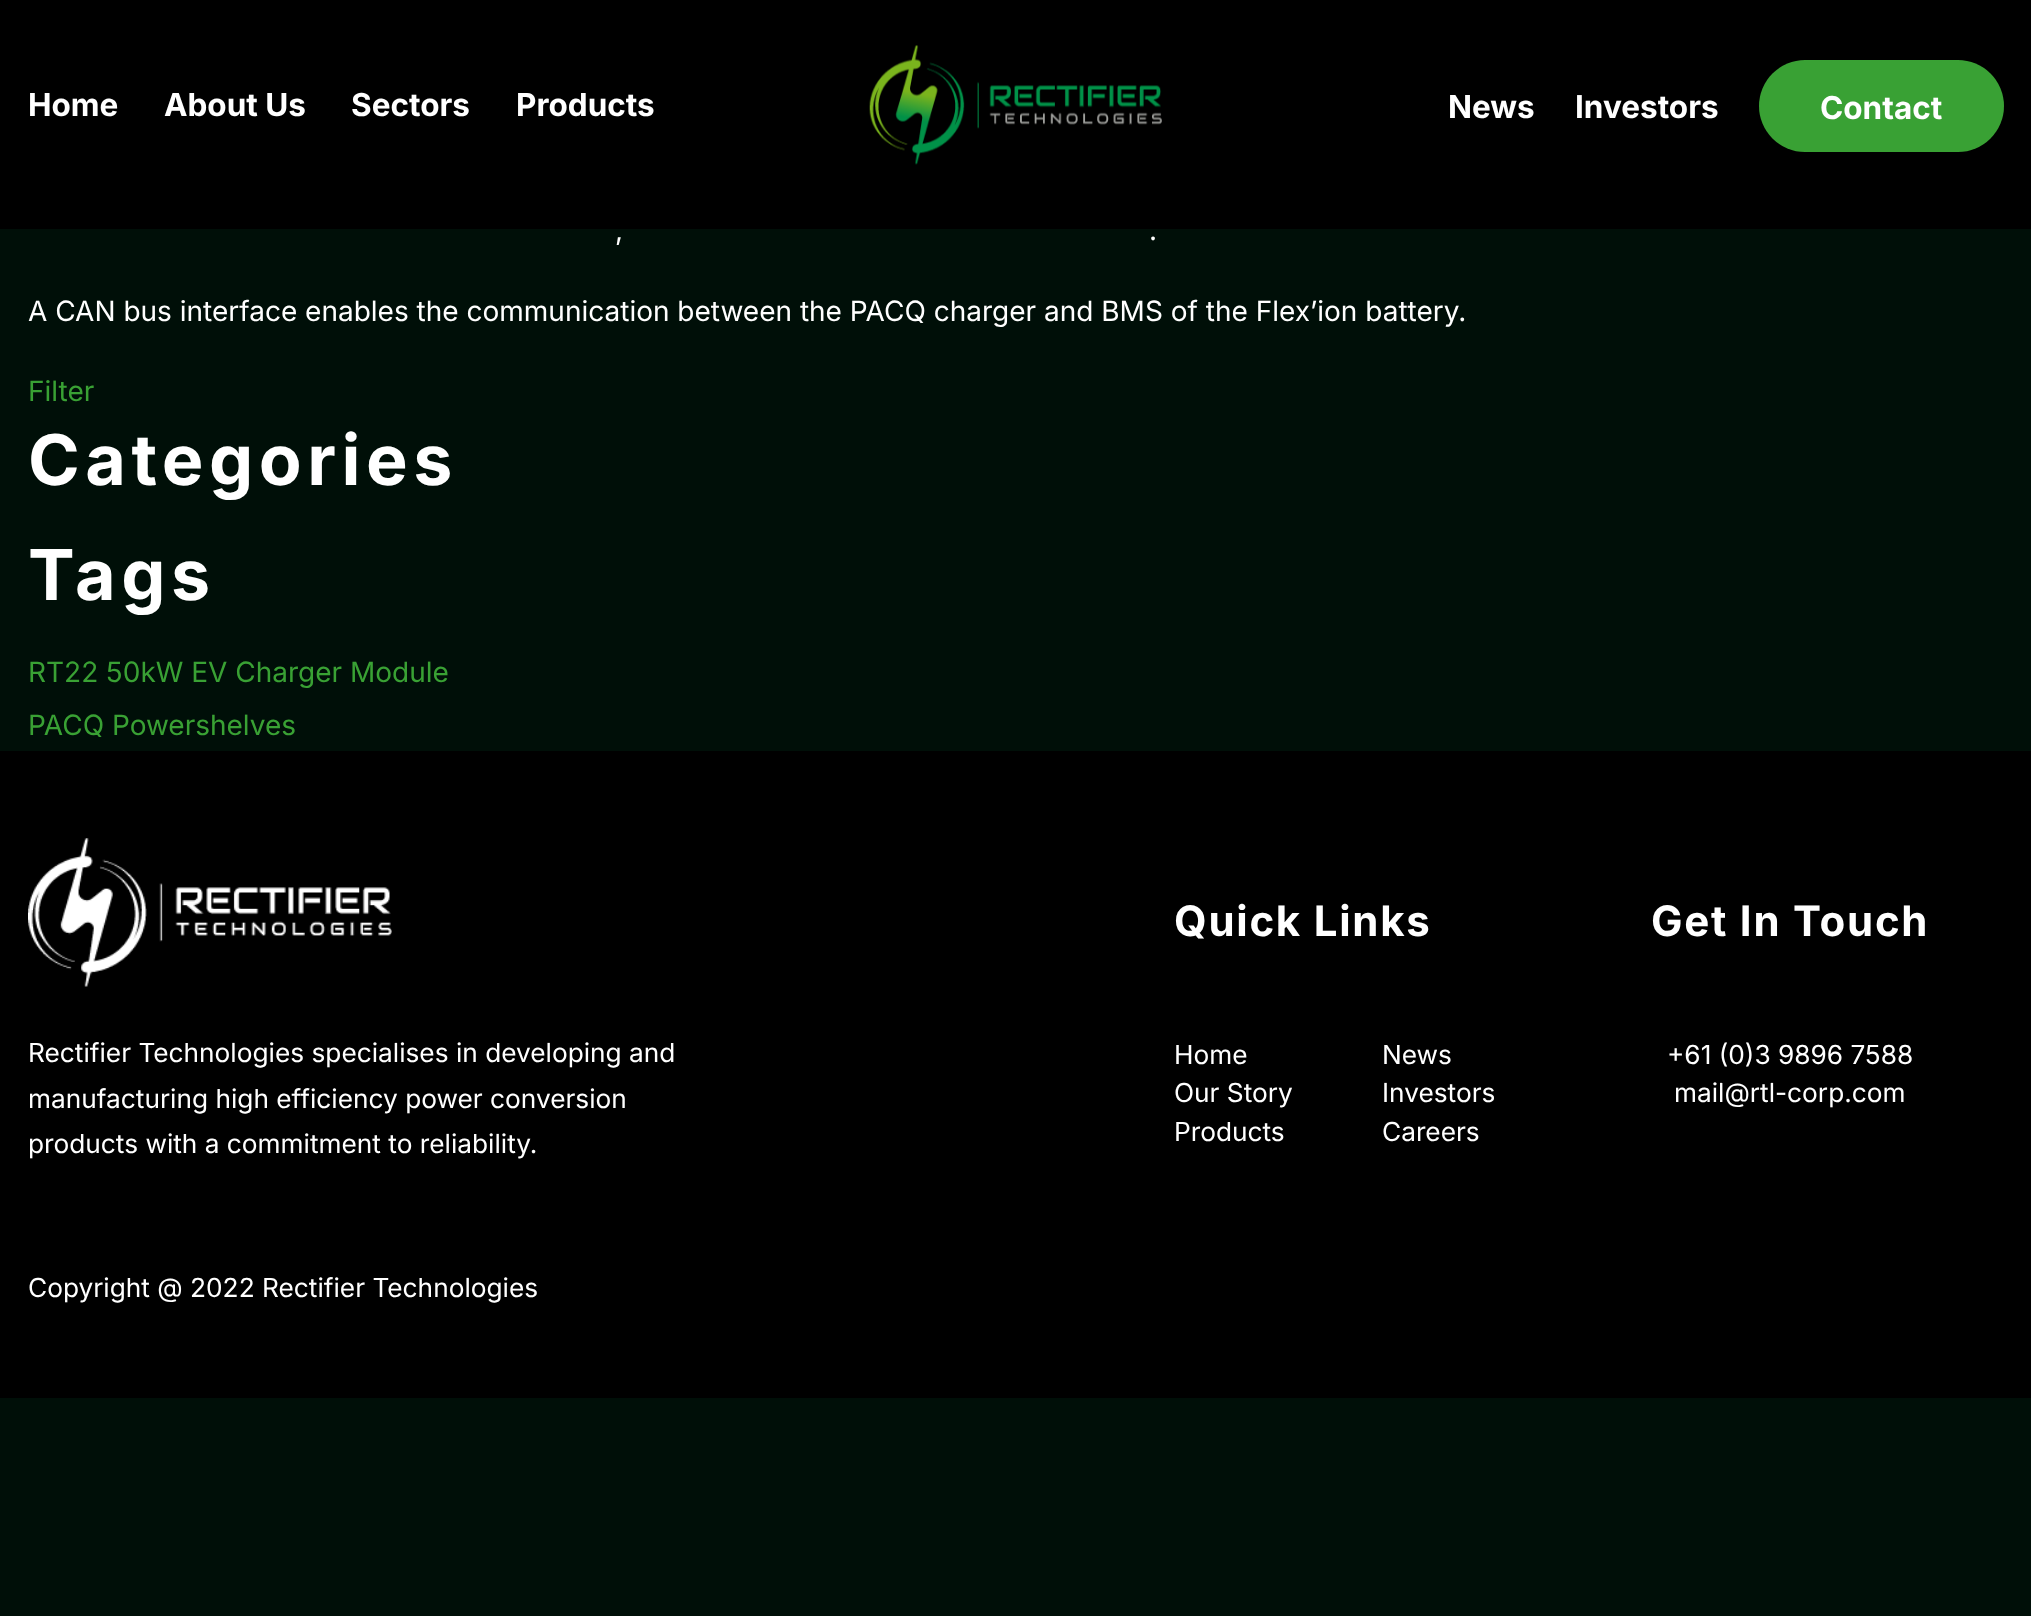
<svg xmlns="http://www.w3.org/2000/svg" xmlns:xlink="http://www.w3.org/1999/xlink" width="2031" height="1616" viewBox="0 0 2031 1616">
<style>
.cls-1{font:bold 31.5px Inter;fill:#ffffff}
.cls-2{font:28px Inter;fill:#ffffff}
.cls-3{font:28px Inter;fill:#39a134}
.cls-4{font:bold 70px Inter;letter-spacing:5.5px;fill:#ffffff}
.cls-5{font:bold 42px Inter;letter-spacing:1.75px;fill:#ffffff}
.cls-6{font:26.25px Inter;fill:#ffffff}
</style>
<rect width="100%" height="100%" fill="#000f08"/>
<rect fill="#000000" x="0" y="0" width="2031" height="229"/>
<image xlink:href="image0.png" x="869" y="45" width="293" height="120"/>
<rect fill="#39a134" x="1759" y="60" width="245" height="92" rx="46"/>
<rect fill="#000000" x="0" y="751" width="2031" height="647"/>
<image xlink:href="image1.png" x="28" y="838" width="364" height="149"/>
<text class="cls-1" x="28" y="116">Home</text>
<text class="cls-1" x="164" y="116">About Us</text>
<text class="cls-1" x="351" y="116">Sectors</text>
<text class="cls-1" x="516" y="116">Products</text>
<text class="cls-1" x="1448" y="118">News</text>
<text class="cls-1" x="1575" y="118">Investors</text>
<text class="cls-1" x="1820" y="119">Contact</text>
<text class="cls-2" x="615" y="240">,</text>
<text class="cls-2" x="1149" y="240">.</text>
<text class="cls-2" x="28" y="321">A CAN bus interface enables the communication between the PACQ charger and BMS of the Flex’ion battery.</text>
<text class="cls-3" x="28" y="401">Filter</text>
<text class="cls-4"><tspan x="28" y="485">Categories</tspan><tspan x="28" y="600">Tags</tspan></text>
<text class="cls-3"><tspan x="28" y="682">RT22 50kW EV Charger Module</tspan><tspan x="28" y="735">PACQ Powershelves</tspan></text>
<text class="cls-5" x="1174" y="936">Quick Links</text>
<text class="cls-6" x="1174" y="1064">Home</text>
<text class="cls-6" x="1382" y="1064">News</text>
<text class="cls-6" x="1174" y="1102">Our Story</text>
<text class="cls-6" x="1382" y="1102">Investors</text>
<text class="cls-6" x="1174" y="1141">Products</text>
<text class="cls-6" x="1382" y="1141">Careers</text>
<text class="cls-5" x="1651" y="936">Get In Touch</text>
<text class="cls-6" x="1667" y="1064">+61 (0)3 9896 7588</text>
<text class="cls-6" x="1674" y="1102">mail@rtl-corp.com</text>
<text class="cls-6"><tspan x="28" y="1062">Rectifier Technologies specialises in developing and</tspan><tspan x="28" y="1108">manufacturing high efficiency power conversion</tspan><tspan x="28" y="1153">products with a commitment to reliability.</tspan></text>
<text class="cls-6" x="28" y="1297">Copyright @ 2022 Rectifier Technologies</text>
</svg>
